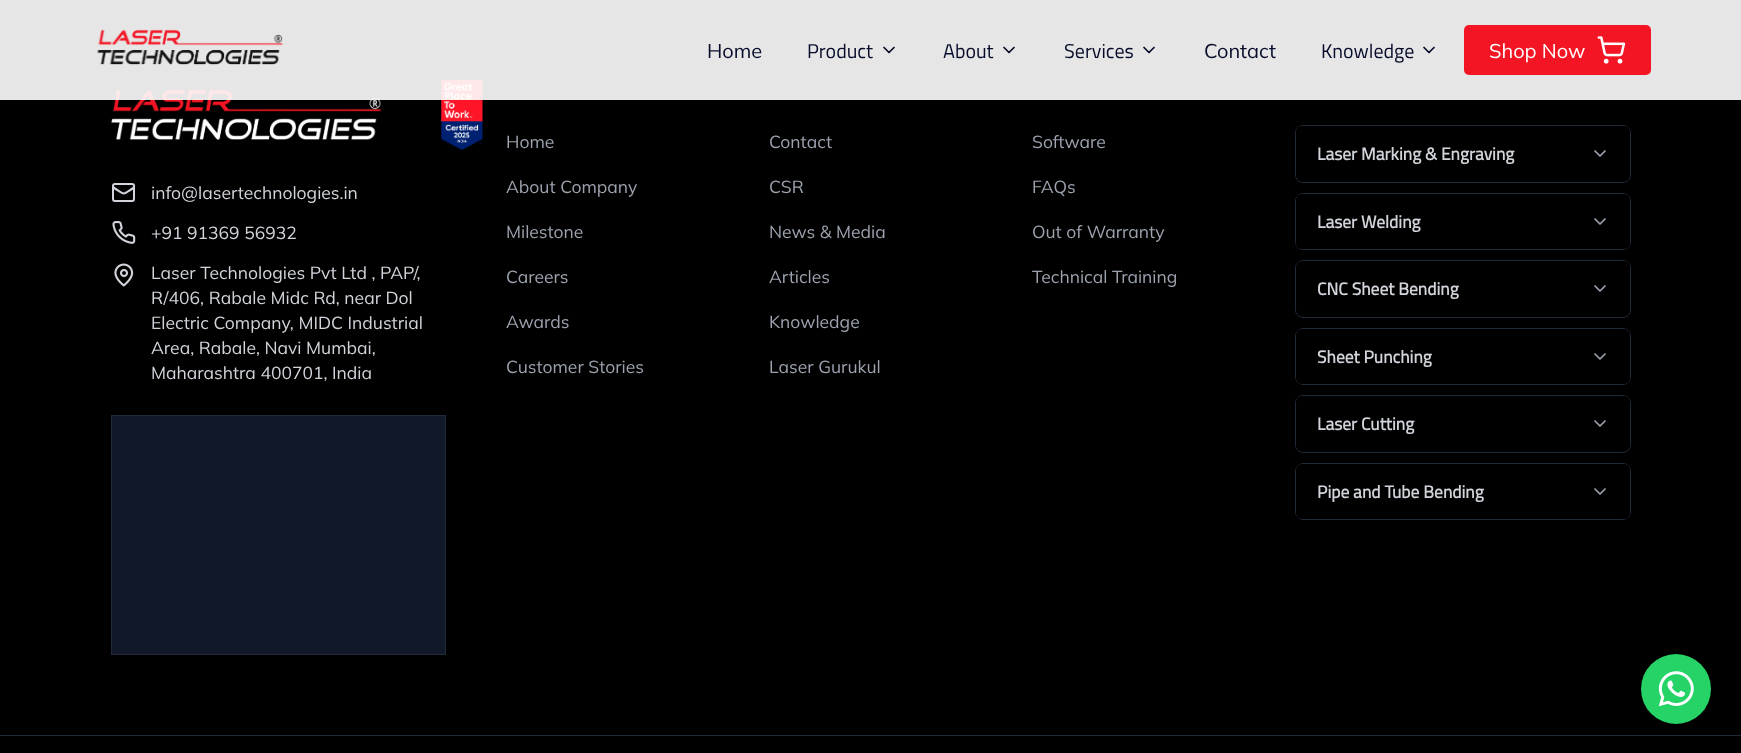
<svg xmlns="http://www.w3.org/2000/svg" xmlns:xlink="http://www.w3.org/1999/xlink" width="1741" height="753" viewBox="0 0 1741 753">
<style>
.cls-1{font:200 20px Mulish;fill:#060c2a}
.cls-2{font:20px Titillium Web;fill:#060c2a}
.cls-3{font:200 20px Mulish;fill:#ffffff}
.cls-4{font:200 17.5px Mulish;fill:#d1d5db}
.cls-5{font:200 17.5px Mulish;fill:#9ca3af}
.cls-6{font:bold 17.5px Titillium Web;fill:#d1d5db}
</style>
<rect width="100%" height="100%" fill="#000000"/>
<image xlink:href="image2.png" x="111" y="90" width="271" height="50"/>
<image xlink:href="image3.png" x="441" y="80" width="42" height="70"/>
<rect fill="#ffffff" fill-opacity="0.9" x="0" y="0" width="1741" height="100"/>
<image xlink:href="image0.png" x="97" y="29" width="186" height="36"/>
<path fill="none" stroke="#060c2a" stroke-width="1.7" stroke-linecap="round" stroke-linejoin="round" d="M884 47.5L889 52.5L894 47.5"/>
<path fill="none" stroke="#060c2a" stroke-width="1.7" stroke-linecap="round" stroke-linejoin="round" d="M1004 47.5L1009 52.5L1014 47.5"/>
<path fill="none" stroke="#060c2a" stroke-width="1.7" stroke-linecap="round" stroke-linejoin="round" d="M1144 47.5L1149 52.5L1154 47.5"/>
<path fill="none" stroke="#060c2a" stroke-width="1.7" stroke-linecap="round" stroke-linejoin="round" d="M1424 47.5L1429 52.5L1434 47.5"/>
<rect fill="#f31524" x="1464" y="25" width="187" height="50" rx="5"/>
<image xlink:href="image1.png" x="1597" y="36" width="29" height="28"/>
<rect fill="none" stroke="#d1d5db" stroke-width="2" x="113" y="184" width="21" height="17" rx="2"/>
<path fill="none" stroke="#d1d5db" stroke-width="2.1" stroke-linecap="round" stroke-linejoin="round" d="M134 187.5C121.5 195.5 126 195.5 113.5 187.5"/>
<image xlink:href="image4.png" x="112" y="221" width="24" height="23"/>
<image xlink:href="image5.png" x="114" y="263" width="20" height="24"/>
<rect fill="#111827" stroke="#1f2937" x="111.5" y="415.5" width="334" height="239"/>
<rect fill="none" stroke="#1f2937" x="1295.5" y="125.5" width="335" height="57" rx="7.5"/>
<rect fill="#000000" x="1296" y="126" width="334" height="55" rx="6"/>
<path fill="none" stroke="#9ca3af" stroke-width="1.7" stroke-linecap="round" stroke-linejoin="round" d="M1595 151L1600 156L1605 151"/>
<rect fill="none" stroke="#1f2937" x="1295.5" y="193.5" width="335" height="56" rx="7.5"/>
<rect fill="#000000" x="1296" y="194" width="334" height="55" rx="6"/>
<path fill="none" stroke="#9ca3af" stroke-width="1.7" stroke-linecap="round" stroke-linejoin="round" d="M1595 219L1600 224L1605 219"/>
<rect fill="none" stroke="#1f2937" x="1295.5" y="260.5" width="335" height="57" rx="7.5"/>
<rect fill="#000000" x="1296" y="261" width="334" height="55" rx="6"/>
<path fill="none" stroke="#9ca3af" stroke-width="1.7" stroke-linecap="round" stroke-linejoin="round" d="M1595 286L1600 291L1605 286"/>
<rect fill="none" stroke="#1f2937" x="1295.5" y="328.5" width="335" height="56" rx="7.5"/>
<rect fill="#000000" x="1296" y="329" width="334" height="55" rx="6"/>
<path fill="none" stroke="#9ca3af" stroke-width="1.7" stroke-linecap="round" stroke-linejoin="round" d="M1595 354L1600 359L1605 354"/>
<rect fill="none" stroke="#1f2937" x="1295.5" y="395.5" width="335" height="57" rx="7.5"/>
<rect fill="#000000" x="1296" y="396" width="334" height="55" rx="6"/>
<path fill="none" stroke="#9ca3af" stroke-width="1.7" stroke-linecap="round" stroke-linejoin="round" d="M1595 421L1600 426L1605 421"/>
<rect fill="none" stroke="#1f2937" x="1295.5" y="463.5" width="335" height="56" rx="7.5"/>
<rect fill="#000000" x="1296" y="464" width="334" height="55" rx="6"/>
<path fill="none" stroke="#9ca3af" stroke-width="1.7" stroke-linecap="round" stroke-linejoin="round" d="M1595 489L1600 494L1605 489"/>
<rect fill="#1f2937" x="0" y="735" width="1741" height="1"/>
<circle fill="#25d366" cx="1676" cy="689" r="35"/>
<image xlink:href="image6.png" x="1658" y="671" width="36" height="36"/>
<text class="cls-1" x="707" y="58">Home</text>
<text class="cls-2" x="807" y="58">Product</text>
<text class="cls-2" x="943" y="58">About</text>
<text class="cls-2" x="1064" y="58">Services</text>
<text class="cls-1" x="1204" y="58">Contact</text>
<text class="cls-2" x="1321" y="58">Knowledge</text>
<text class="cls-3" x="1489" y="58">Shop Now</text>
<text class="cls-4" x="151" y="199">info@lasertechnologies.in</text>
<text class="cls-4" x="151" y="239">+91 91369 56932</text>
<text class="cls-4"><tspan x="151" y="279">Laser Technologies Pvt Ltd , PAP/,</tspan><tspan x="151" y="304">R/406, Rabale Midc Rd, near Dol</tspan><tspan x="151" y="329">Electric Company, MIDC Industrial</tspan><tspan x="151" y="354">Area, Rabale, Navi Mumbai,</tspan><tspan x="151" y="379">Maharashtra 400701, India</tspan></text>
<text class="cls-5" x="506" y="148">Home</text>
<text class="cls-5" x="506" y="193">About Company</text>
<text class="cls-5" x="506" y="238">Milestone</text>
<text class="cls-5" x="506" y="283">Careers</text>
<text class="cls-5" x="506" y="328">Awards</text>
<text class="cls-5" x="506" y="373">Customer Stories</text>
<text class="cls-5" x="769" y="148">Contact</text>
<text class="cls-5" x="769" y="193">CSR</text>
<text class="cls-5" x="769" y="238">News &amp; Media</text>
<text class="cls-5" x="769" y="283">Articles</text>
<text class="cls-5" x="769" y="328">Knowledge</text>
<text class="cls-5" x="769" y="373">Laser Gurukul</text>
<text class="cls-5" x="1032" y="148">Software</text>
<text class="cls-5" x="1032" y="193">FAQs</text>
<text class="cls-5" x="1032" y="238">Out of Warranty</text>
<text class="cls-5" x="1032" y="283">Technical Training</text>
<text class="cls-6" x="1317" y="160">Laser Marking &amp; Engraving</text>
<text class="cls-6" x="1317" y="228">Laser Welding</text>
<text class="cls-6" x="1317" y="295">CNC Sheet Bending</text>
<text class="cls-6" x="1317" y="363">Sheet Punching</text>
<text class="cls-6" x="1317" y="430">Laser Cutting</text>
<text class="cls-6" x="1317" y="498">Pipe and Tube Bending</text>
</svg>
